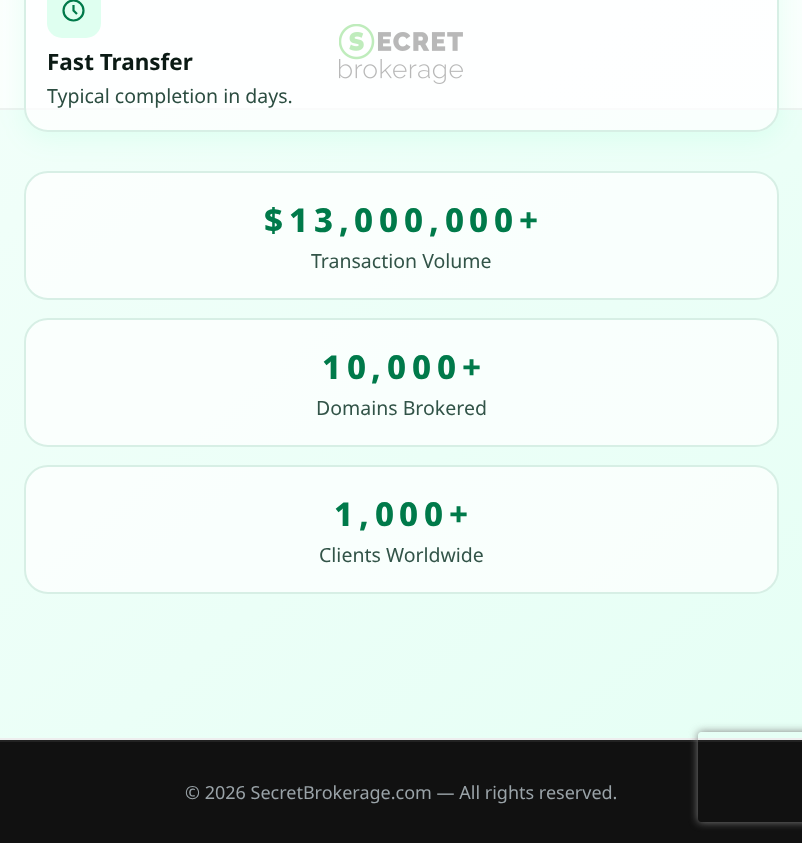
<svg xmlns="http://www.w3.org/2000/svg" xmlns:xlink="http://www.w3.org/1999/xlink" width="802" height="843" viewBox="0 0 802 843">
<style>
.cls-1{font:bold 22.5px Noto Sans;fill:#0b1a14}
.cls-2{font:19.5px Noto Sans;fill:#2c4d41}
.cls-3{font:800 33px Noto Sans;fill:#007a4a}
.cls-4{font:19.5px Noto Sans;fill:#325448}
.cls-5{font:18px Noto Sans;fill:#9aa3a8}
</style>
<defs>
<linearGradient id="g1" gradientUnits="userSpaceOnUse" x1="-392" y1="-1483" x2="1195" y2="409"><stop offset="0" stop-color="#ffffff"/><stop offset="0.45" stop-color="#fcfffe"/><stop offset="1" stop-color="#f8fffc"/></linearGradient>
<linearGradient id="g2" gradientUnits="userSpaceOnUse" x1="-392" y1="-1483" x2="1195" y2="409"><stop offset="0" stop-color="#ffffff"/><stop offset="0.45" stop-color="#f5fffb"/><stop offset="1" stop-color="#e6fff5"/></linearGradient>
<clipPath id="clip1"><path d="M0 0H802V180H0ZM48-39H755C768.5-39 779-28.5 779-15V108C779 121.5 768.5 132 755 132H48C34.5 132 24 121.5 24 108V-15C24-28.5 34.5-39 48-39Z" clip-rule="evenodd"/></clipPath>
<clipPath id="clip2"><path d="M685 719H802V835H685ZM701 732H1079C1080.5 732 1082 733.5 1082 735V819C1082 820.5 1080.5 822 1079 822H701C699.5 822 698 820.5 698 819V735C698 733.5 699.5 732 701 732Z" clip-rule="evenodd"/></clipPath>
</defs>
<rect width="100%" height="100%" fill="#ffffff"/>
<rect fill="#edf2f0" x="0" y="108" width="802" height="2"/>
<rect fill="url(#g1)" x="0" y="0" width="802" height="108"/>
<image xlink:href="image0.png" x="339" y="24" width="124" height="60"/>
<rect fill="url(#g2)" x="0" y="110" width="802" height="628"/>
<rect fill="#edeeee" x="0" y="738" width="802" height="2"/>
<g clip-path="url(#clip1)">
<rect fill="#00ff88" fill-opacity="0.08" filter="blur(13.5px)" x="24" y="-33" width="755" height="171" rx="24"/>
</g>
<rect fill="#ffffff" fill-opacity="0.7" stroke="#d7efe5" stroke-width="2" x="25" y="-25" width="753" height="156" rx="23"/>
<rect fill="#dffff0" x="47" y="-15" width="54" height="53" rx="15"/>
<circle fill="none" stroke="#007a4a" stroke-width="2.2" cx="73.5" cy="10.5" r="10"/>
<path fill="none" stroke="#007a4a" stroke-width="2.2" d="M73.5 5V10.5L77 14"/>
<rect fill="#ffffff" fill-opacity="0.7" stroke="#d7efe5" stroke-width="2" x="25" y="172" width="753" height="127" rx="23"/>
<rect fill="#ffffff" fill-opacity="0.7" stroke="#d7efe5" stroke-width="2" x="25" y="319" width="753" height="127" rx="23"/>
<rect fill="#ffffff" fill-opacity="0.7" stroke="#d7efe5" stroke-width="2" x="25" y="466" width="753" height="127" rx="23"/>
<rect fill="#111111" x="0" y="742" width="802" height="101"/>
<rect fill="#222222" x="0" y="740" width="802" height="2"/>
<g clip-path="url(#clip2)">
<rect fill="#808080" filter="blur(4px)" x="698" y="732" width="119" height="90" rx="3"/>
</g>
<text class="cls-1" x="47" y="70">Fast Transfer</text>
<text class="cls-2" x="47" y="103">Typical completion in days.</text>
<text class="cls-3" x="264" y="232">$</text>
<text class="cls-3" x="289" y="232">1</text>
<text class="cls-3" x="314" y="232">3</text>
<text class="cls-3" x="354" y="232">0</text>
<text class="cls-3" x="379" y="232">0</text>
<text class="cls-3" x="404" y="232">0</text>
<text class="cls-3" x="445" y="232">0</text>
<text class="cls-3" x="469" y="232">0</text>
<text class="cls-3" x="494" y="232">0</text>
<text class="cls-3" x="519" y="232">+</text>
<text class="cls-3" x="339" y="232">,</text>
<text class="cls-3" x="429" y="232">,</text>
<text class="cls-4" x="311" y="268">Transaction Volume</text>
<text class="cls-3" x="322" y="379">1</text>
<text class="cls-3" x="347" y="379">0</text>
<text class="cls-3" x="387" y="379">0</text>
<text class="cls-3" x="412" y="379">0</text>
<text class="cls-3" x="437" y="379">0</text>
<text class="cls-3" x="462" y="379">+</text>
<text class="cls-3" x="371" y="379">,</text>
<text class="cls-4" x="316" y="415">Domains Brokered</text>
<text class="cls-3" x="334" y="526">1</text>
<text class="cls-3" x="375" y="526">0</text>
<text class="cls-3" x="399" y="526">0</text>
<text class="cls-3" x="424" y="526">0</text>
<text class="cls-3" x="449" y="526">+</text>
<text class="cls-3" x="359" y="526">,</text>
<text class="cls-4" x="319" y="562">Clients Worldwide</text>
<text class="cls-5" x="185" y="799">© 2026 SecretBrokerage.com — All rights reserved.</text>
</svg>
